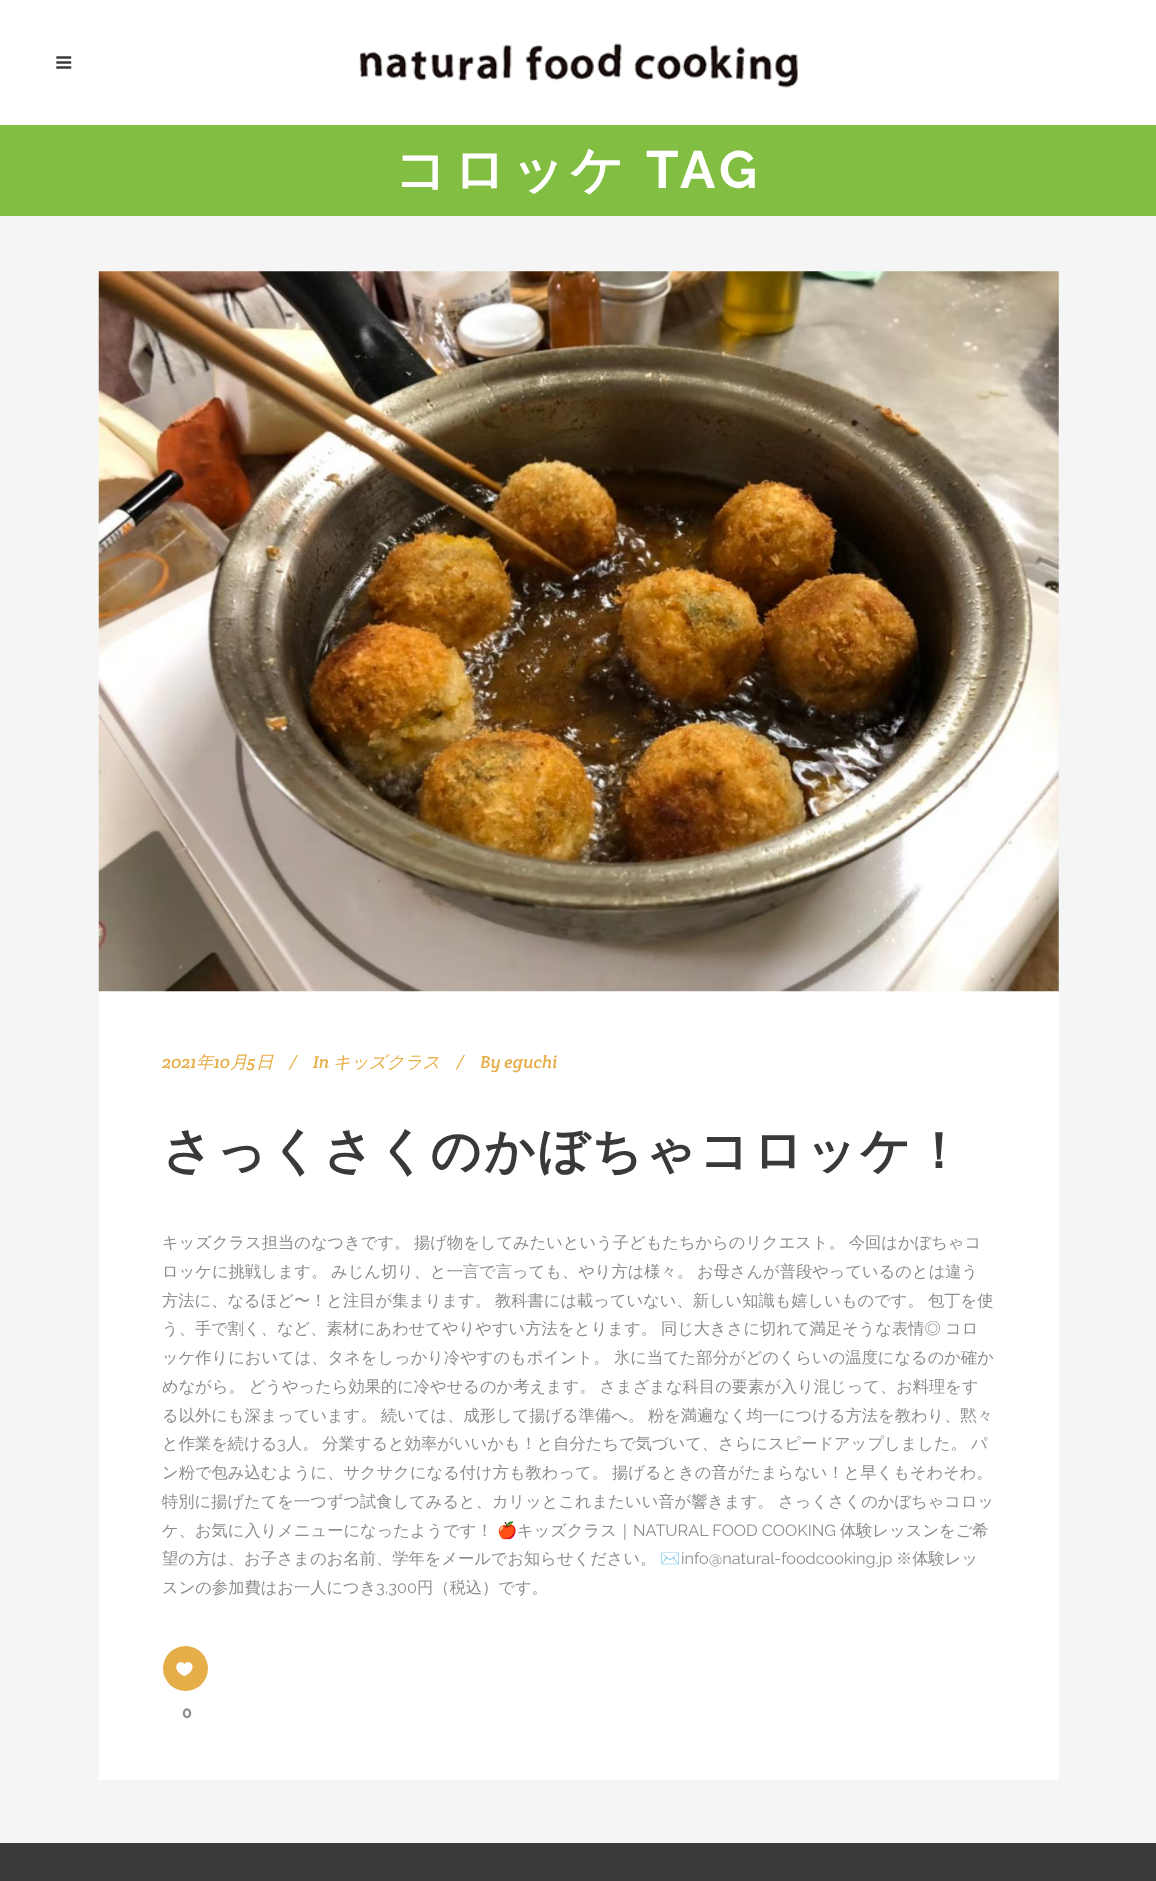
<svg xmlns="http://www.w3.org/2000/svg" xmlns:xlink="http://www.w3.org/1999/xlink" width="1156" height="1881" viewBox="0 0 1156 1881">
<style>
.cls-1{font:bold 52.5px WenQuanYi Zen Hei;letter-spacing:5px;fill:#ffffff}
.cls-2{font:bold 52.5px Raleway;letter-spacing:5px;fill:#ffffff}
.cls-3{font:italic 17.5px Crete Round;fill:#e6ae48}
.cls-4{font:italic 500 17.5px WenQuanYi Zen Hei;fill:#e6ae48}
.cls-5{font:bold 50px WenQuanYi Zen Hei;letter-spacing:2.5px;fill:#393939}
.cls-6{font:500 16.25px WenQuanYi Zen Hei;fill:#8d8d8d}
.cls-7{font:16.25px Raleway;fill:#8d8d8d}
.cls-8{font:16.25px Noto Color Emoji;fill:#8d8d8d}
.cls-9{font:bold 16.25px Raleway;fill:#8d8d8d}
</style>
<rect width="100%" height="100%" fill="#f5f5f5"/>
<rect fill="#ffffff" x="0" y="0" width="1156" height="125"/>
<image xlink:href="image0.png" x="56" y="56" width="16" height="13"/>
<image xlink:href="image1.png" x="359" y="43" width="439" height="45"/>
<rect fill="#82be41" x="0" y="125" width="1156" height="91"/>
<rect fill="#ffffff" x="99" y="991" width="960" height="789"/>
<image xlink:href="image2.png" x="98" y="271" width="961" height="721"/>
<circle fill="#e6ae48" cx="185.5" cy="1668.5" r="22.5"/>
<image xlink:href="image3.png" x="176" y="1662" width="17" height="14"/>
<rect fill="#393939" x="0" y="1843" width="1156" height="38"/>
<text class="cls-1" x="394" y="188">コロッケ</text>
<text class="cls-2" x="646" y="188">TAG</text>
<text class="cls-3" x="162" y="1068">2021</text>
<text class="cls-4" x="196" y="1068">年</text>
<text class="cls-3" x="214" y="1068">10</text>
<text class="cls-4" x="230" y="1068">月</text>
<text class="cls-3" x="247" y="1068">5</text>
<text class="cls-4" x="256" y="1068">日</text>
<text class="cls-3" x="289" y="1068">/</text>
<text class="cls-3" x="313" y="1068">In</text>
<text class="cls-4" x="333" y="1068">キッズクラス</text>
<text class="cls-3" x="456" y="1068">/</text>
<text class="cls-3" x="480" y="1068">By eguchi</text>
<text class="cls-5" x="162" y="1168">さっくさくのかぼちゃコロッケ！</text>
<text class="cls-6" x="162" y="1248">キッズクラス担当のなつきです。</text>
<text class="cls-6" x="414" y="1248" word-spacing="-1">揚げ物をしてみたいという子どもたちからのリクエスト。 今回はかぼちゃコ</text>
<text class="cls-6" x="162" y="1277">ロッケに挑戦します。</text>
<text class="cls-6" x="331" y="1277" word-spacing="-1">みじん切り、と一言で言っても、やり方は様々。 お母さんが普段やっているのとは違う</text>
<text class="cls-6" x="162" y="1306" word-spacing="-1">方法に、なるほど〜！と注目が集まります。 教科書には載っていない、新しい知識も嬉しいものです。</text>
<text class="cls-6" x="928" y="1306">包丁を使</text>
<text class="cls-6" x="162" y="1334" word-spacing="-1">う、手で割く、など、素材にあわせてやりやすい方法をとります。 同じ大きさに切れて満足そうな表情◎</text>
<text class="cls-6" x="945" y="1334">コロ</text>
<text class="cls-6" x="162" y="1363">ッケ作りにおいては、タネをしっかり冷やすのもポイント。</text>
<text class="cls-6" x="614" y="1363">氷に当てた部分がどのくらいの温度になるのか確か</text>
<text class="cls-6"><tspan x="162" y="1392" word-spacing="-1">めながら。 どうやったら効果的に冷やせるのか考えます。 さまざまな科目の要素が入り混じって、お料理をす</tspan><tspan x="162" y="1421">る以外にも深まっています。</tspan></text>
<text class="cls-6" x="381" y="1421" word-spacing="-1">続いては、成形して揚げる準備へ。 粉を満遍なく均一につける方法を教わり、黙々</text>
<text class="cls-6" x="162" y="1449">と作業を続ける</text>
<text class="cls-7" x="277" y="1449">3</text>
<text class="cls-6" x="286" y="1449" word-spacing="-1">人。 分業すると効率がいいかも！と自分たちで気づいて、さらにスピードアップしました。</text>
<text class="cls-6" x="971" y="1449">パ</text>
<text class="cls-6" x="162" y="1478">ン粉で包み込むように、サクサクになる付け方も教わって。</text>
<text class="cls-6" x="612" y="1478">揚げるときの音がたまらない！と早くもそわそわ。</text>
<text class="cls-6" x="162" y="1507">特別に揚げたてを一つずつ試食してみると、カリッとこれまたいい音が響きます。</text>
<text class="cls-6" x="778" y="1507">さっくさくのかぼちゃコロッ</text>
<text class="cls-6" x="162" y="1536">ケ、お気に入りメニューになったようです！</text>
<text class="cls-8" x="497" y="1536">🍎</text>
<text class="cls-6" x="517" y="1536">キッズクラス｜</text>
<text class="cls-7" x="633" y="1536">NATURAL FOOD COOKING</text>
<text class="cls-6" x="840" y="1536">体験レッスンをご希</text>
<text class="cls-6" x="162" y="1564">望の方は、お子さまのお名前、学年をメールでお知らせください。</text>
<text class="cls-8" x="660" y="1564">✉️</text>
<text class="cls-7" x="681" y="1564">info@natural-foodcooking.jp</text>
<text class="cls-6" x="896" y="1564">※体験レッ</text>
<text class="cls-6" x="162" y="1593">スンの参加費はお一人につき</text>
<text class="cls-7" x="376" y="1593">3,300</text>
<text class="cls-6" x="417" y="1593">円（税込）です。</text>
<text class="cls-9" x="182" y="1718">0</text>
</svg>
